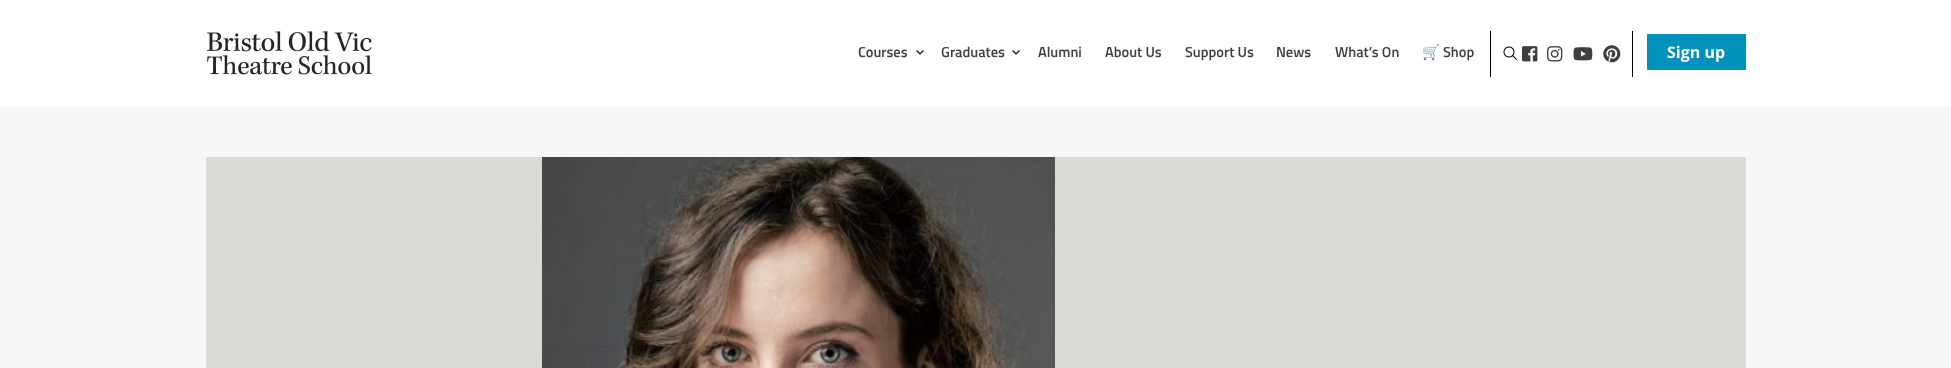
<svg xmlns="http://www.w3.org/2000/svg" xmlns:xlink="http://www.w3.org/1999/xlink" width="1951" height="368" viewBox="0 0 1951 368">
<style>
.cls-1{font:600 14.5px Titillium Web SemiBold;fill:#3e403f}
.cls-2{font:bold 14.5px Noto Color Emoji;fill:#3e403f}
.cls-3{font:bold 16px Open Sans;fill:#ffffff}
</style>
<rect width="100%" height="100%" fill="#ffffff"/>
<image xlink:href="image0.png" x="207" y="31" width="165" height="44"/>
<path fill="none" stroke="#000000" stroke-width="1.1" d="M916.5 50.5L920 54L923.5 50.5"/>
<path fill="none" stroke="#000000" stroke-width="1.1" d="M1012.5 50.5L1016 54L1019.5 50.5"/>
<rect fill="#000000" x="1632" y="31" width="1" height="46"/>
<rect fill="#000000" x="1490" y="31" width="1" height="46"/>
<image xlink:href="image1.png" x="1503" y="46" width="14" height="14"/>
<image xlink:href="image2.png" x="1522" y="46" width="16" height="16"/>
<image xlink:href="image3.png" x="1547" y="46" width="16" height="16"/>
<image xlink:href="image4.png" x="1573" y="47" width="20" height="14"/>
<image xlink:href="image5.png" x="1603" y="45" width="18" height="18"/>
<rect fill="#0092bc" x="1647" y="34" width="99" height="36"/>
<rect fill="#f7f7f7" x="0" y="107" width="1951" height="261"/>
<rect fill="#d9d9d6" x="206" y="157" width="1540" height="211"/>
<image xlink:href="image6.png" x="542" y="157" width="513" height="211"/>
<text class="cls-1" x="858" y="57">Courses</text>
<text class="cls-1" x="941" y="57">Graduates</text>
<text class="cls-1" x="1038" y="57">Alumni</text>
<text class="cls-1" x="1105" y="57">About Us</text>
<text class="cls-1" x="1185" y="57">Support Us</text>
<text class="cls-1" x="1276" y="57">News</text>
<text class="cls-1" x="1335" y="57">What’s On</text>
<text class="cls-2" x="1422" y="57">🛒</text>
<text class="cls-1" x="1443" y="57">Shop</text>
<text class="cls-3" x="1667" y="58">Sign up</text>
</svg>
